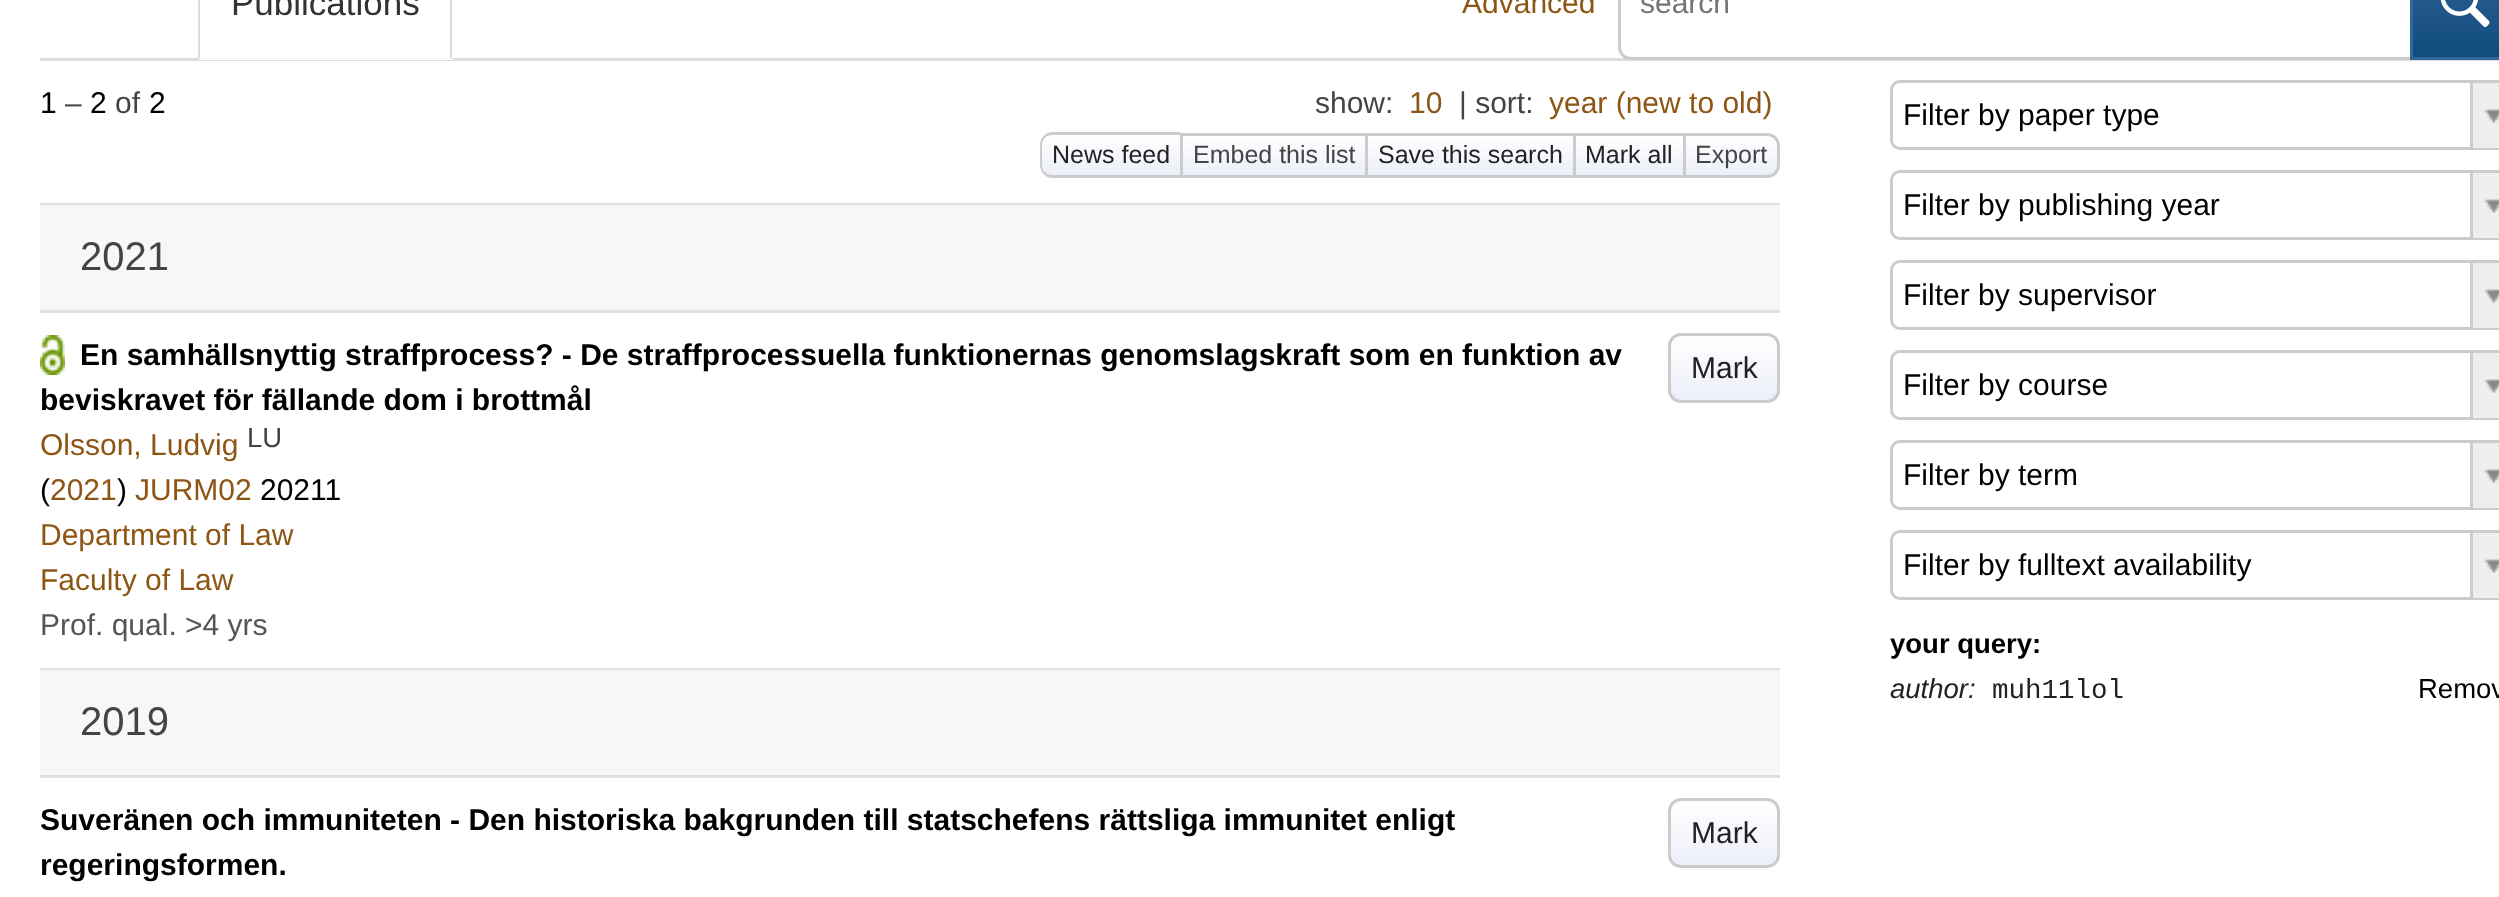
<svg xmlns="http://www.w3.org/2000/svg" xmlns:xlink="http://www.w3.org/1999/xlink" width="2499" height="897" viewBox="0 0 2499 897">
<style>
.cls-1{font:35px Liberation Sans;fill:#333333}
.cls-2{font:30px Liberation Sans;fill:#8e5614}
.cls-3{font:30px Liberation Sans;fill:#757575}
.cls-4{font:30px Liberation Sans;fill:#000000}
.cls-5{font:30px Liberation Sans;fill:#444444}
.cls-6{font:25px Liberation Sans;fill:#222222}
.cls-7{font:25px Liberation Sans;fill:#444444}
.cls-8{font:40px Liberation Sans;fill:#444444}
.cls-9{font:bold 30px Liberation Sans;fill:#000000}
.cls-10{font:30px Liberation Sans;fill:#222222}
.cls-11{font:27.5px Liberation Sans;fill:#444444}
.cls-12{font:30px Liberation Sans;fill:#555555}
.cls-13{font:bold 27.5px Liberation Sans;fill:#000000}
.cls-14{font:italic 27.5px Liberation Sans;fill:#222222}
.cls-15{font:27.5px Liberation Mono;fill:#222222}
.cls-16{font:27.5px Liberation Sans;fill:#000000}
</style>
<defs>
<linearGradient id="g1" gradientUnits="userSpaceOnUse" x1="2465" y1="-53" x2="2465" y2="58"><stop offset="0" stop-color="#336699"/><stop offset="1" stop-color="#104b7d"/></linearGradient>
<clipPath id="clip1"><path d="M1053 133H1180V178H1053C1046 178 1040 172 1040 165V146C1040 139 1046 133 1053 133Z"/></clipPath>
<linearGradient id="g2" gradientUnits="userSpaceOnUse" x1="1111" y1="135" x2="1111" y2="175"><stop offset="0" stop-color="#ffffff"/><stop offset="1" stop-color="#eceff8"/></linearGradient>
<linearGradient id="g3" gradientUnits="userSpaceOnUse" x1="1274" y1="135" x2="1274" y2="175"><stop offset="0" stop-color="#ffffff"/><stop offset="1" stop-color="#eceff8"/></linearGradient>
<linearGradient id="g4" gradientUnits="userSpaceOnUse" x1="1470" y1="135" x2="1470" y2="175"><stop offset="0" stop-color="#ffffff"/><stop offset="1" stop-color="#eceff8"/></linearGradient>
<linearGradient id="g5" gradientUnits="userSpaceOnUse" x1="1629" y1="135" x2="1629" y2="175"><stop offset="0" stop-color="#ffffff"/><stop offset="1" stop-color="#eceff8"/></linearGradient>
<clipPath id="clip2"><path d="M1683 133H1767C1774 133 1780 139 1780 146V165C1780 172 1774 178 1767 178H1683Z"/></clipPath>
<linearGradient id="g6" gradientUnits="userSpaceOnUse" x1="1731" y1="135" x2="1731" y2="175"><stop offset="0" stop-color="#ffffff"/><stop offset="1" stop-color="#eceff8"/></linearGradient>
<clipPath id="clip3"><rect x="1668" y="333" width="112" height="70" rx="13"/></clipPath>
<linearGradient id="g7" gradientUnits="userSpaceOnUse" x1="1724" y1="335" x2="1724" y2="400"><stop offset="0" stop-color="#ffffff"/><stop offset="1" stop-color="#eceff8"/></linearGradient>
<clipPath id="clip4"><rect x="1668" y="798" width="112" height="70" rx="13"/></clipPath>
<linearGradient id="g8" gradientUnits="userSpaceOnUse" x1="1724" y1="800" x2="1724" y2="865"><stop offset="0" stop-color="#ffffff"/><stop offset="1" stop-color="#eceff8"/></linearGradient>
</defs>
<rect width="100%" height="100%" fill="#ffffff"/>
<rect fill="#dddddd" x="40" y="58" width="2459" height="3"/>
<rect fill="#ffffff" x="198" y="58" width="255" height="2"/>
<path fill="#dddddd" d="M449-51C451-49 452-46 452-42V60L450 58V-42C450-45 449-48 447-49Z"/>
<path fill="#ffffff" d="M198 60H452L450 58H200Z"/>
<path fill="#dddddd" d="M201-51C199-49 198-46 198-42V60L200 58V-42C200-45 201-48 203-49Z"/>
<path fill="#ffffff" stroke="#cccccc" stroke-width="3" d="M1631-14.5H2411.5V58.5H1631C1624.5 58.5 1619.5 53.5 1619.5 47V-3C1619.5-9.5 1624.5-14.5 1631-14.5Z"/>
<rect fill="url(#g1)" x="2413" y="0" width="86" height="57"/>
<rect fill="none" stroke="#336699" stroke-width="3" x="2411.5" y="-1.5" width="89" height="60"/>
<image xlink:href="image0.png" x="2440" y="0" width="50" height="27"/>
<g clip-path="url(#clip1)">
<rect fill="url(#g2)" x="1040" y="135" width="140" height="40"/>
</g>
<path fill="#cccccc" fill-rule="evenodd" d="M1052 132H1180V178H1052C1046 178 1040 172 1040 165V145C1040 138 1046 132 1052 132ZM1052 135H1180V175H1052C1047 175 1042 171 1042 165V145C1042 139 1047 135 1052 135Z"/>
<rect fill="url(#g3)" x="1183" y="140" width="182" height="35"/>
<rect fill="#cccccc" x="1180" y="133" width="503" height="3"/>
<rect fill="#cccccc" x="1180" y="175" width="503" height="3"/>
<rect fill="#cccccc" x="1180" y="133" width="3" height="45"/>
<rect fill="url(#g4)" x="1368" y="140" width="205" height="35"/>
<rect fill="#cccccc" x="1365" y="133" width="3" height="45"/>
<rect fill="url(#g5)" x="1576" y="140" width="107" height="35"/>
<rect fill="#cccccc" x="1573" y="133" width="3" height="45"/>
<g clip-path="url(#clip2)">
<rect fill="url(#g6)" x="1686" y="135" width="94" height="40"/>
</g>
<path fill="none" stroke="#cccccc" stroke-width="3" d="M1684.5 134.5H1767C1773.5 134.5 1778.5 139.5 1778.5 146V165C1778.5 171.5 1773.5 176.5 1767 176.5H1684.5Z"/>
<rect fill="#dcdfe4" x="40" y="203" width="1740" height="2"/>
<rect fill="#f7f7f7" x="40" y="205" width="1740" height="105"/>
<rect fill="#dcdfe4" x="40" y="310" width="1740" height="3"/>
<image xlink:href="image1.png" x="40" y="335" width="25" height="40"/>
<rect fill="#dcdfe4" x="40" y="668" width="1740" height="2"/>
<g clip-path="url(#clip3)">
<rect fill="url(#g7)" x="1668" y="335" width="112" height="65"/>
</g>
<rect fill="none" stroke="#cccccc" stroke-width="3" x="1669.5" y="334.5" width="109" height="67" rx="11.5"/>
<rect fill="#f7f7f7" x="40" y="670" width="1740" height="105"/>
<rect fill="#dcdfe4" x="40" y="775" width="1740" height="3"/>
<g clip-path="url(#clip4)">
<rect fill="url(#g8)" x="1668" y="800" width="112" height="65"/>
</g>
<rect fill="none" stroke="#cccccc" stroke-width="3" x="1669.5" y="799.5" width="109" height="67" rx="11.5"/>
<rect fill="none" stroke="#cccccc" stroke-width="3" x="1891.5" y="81.5" width="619" height="67" rx="8.5"/>
<rect fill="#eeeeee" x="2473" y="83" width="26" height="65"/>
<rect fill="#cccccc" x="2470" y="83" width="3" height="65"/>
<image xlink:href="image2.png" x="2484" y="109" width="15" height="16"/>
<rect fill="none" stroke="#cccccc" stroke-width="3" x="1891.5" y="171.5" width="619" height="67" rx="8.5"/>
<rect fill="#eeeeee" x="2473" y="173" width="26" height="65"/>
<rect fill="#cccccc" x="2470" y="173" width="3" height="65"/>
<image xlink:href="image2.png" x="2484" y="199" width="15" height="16"/>
<rect fill="none" stroke="#cccccc" stroke-width="3" x="1891.5" y="261.5" width="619" height="67" rx="8.5"/>
<rect fill="#eeeeee" x="2473" y="263" width="26" height="65"/>
<rect fill="#cccccc" x="2470" y="263" width="3" height="65"/>
<image xlink:href="image2.png" x="2484" y="289" width="15" height="16"/>
<rect fill="none" stroke="#cccccc" stroke-width="3" x="1891.5" y="351.5" width="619" height="67" rx="8.5"/>
<rect fill="#eeeeee" x="2473" y="353" width="26" height="65"/>
<rect fill="#cccccc" x="2470" y="353" width="3" height="65"/>
<image xlink:href="image2.png" x="2484" y="379" width="15" height="16"/>
<rect fill="none" stroke="#cccccc" stroke-width="3" x="1891.5" y="441.5" width="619" height="67" rx="8.5"/>
<rect fill="#eeeeee" x="2473" y="443" width="26" height="65"/>
<rect fill="#cccccc" x="2470" y="443" width="3" height="65"/>
<image xlink:href="image2.png" x="2484" y="469" width="15" height="16"/>
<rect fill="none" stroke="#cccccc" stroke-width="3" x="1891.5" y="531.5" width="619" height="67" rx="8.5"/>
<rect fill="#eeeeee" x="2473" y="533" width="26" height="65"/>
<rect fill="#cccccc" x="2470" y="533" width="3" height="65"/>
<image xlink:href="image2.png" x="2484" y="559" width="15" height="16"/>
<text class="cls-1" x="231" y="15">Publications</text>
<text class="cls-2" x="1462" y="13">Advanced</text>
<text class="cls-3" x="1640" y="13">search</text>
<text class="cls-4" x="40" y="113">1</text>
<text class="cls-5" x="65" y="113">–</text>
<text class="cls-4" x="90" y="113">2</text>
<text class="cls-5" x="115" y="113">of</text>
<text class="cls-4" x="149" y="113">2</text>
<text class="cls-5" x="1315" y="113">show:</text>
<text class="cls-2" x="1409" y="113">10</text>
<text class="cls-5" x="1459" y="113">| sort:</text>
<text class="cls-2" x="1549" y="113">year (new to old)</text>
<text class="cls-6" x="1052" y="163">News feed</text>
<text class="cls-7" x="1193" y="163">Embed this list</text>
<text class="cls-6" x="1378" y="163">Save this search</text>
<text class="cls-6" x="1585" y="163">Mark all</text>
<text class="cls-7" x="1695" y="163">Export</text>
<text class="cls-8" x="80" y="270">2021</text>
<text class="cls-9" x="80" y="365">En samhällsnyttig straffprocess? - De straffprocessuella funktionernas genomslagskraft som en funktion av</text>
<text class="cls-9" x="40" y="410">beviskravet för fällande dom i brottmål</text>
<text class="cls-10" x="1691" y="378">Mark</text>
<text class="cls-2" x="40" y="455">Olsson, Ludvig</text>
<text class="cls-11" x="247" y="447">LU</text>
<text class="cls-4" x="40" y="500">(</text>
<text class="cls-2" x="50" y="500">2021</text>
<text class="cls-4" x="117" y="500">)</text>
<text class="cls-2" x="135" y="500">JURM02</text>
<text class="cls-4" x="260" y="500">20211</text>
<text class="cls-2"><tspan x="40" y="545">Department of Law</tspan><tspan x="40" y="590">Faculty of Law</tspan></text>
<text class="cls-12" x="40" y="635">Prof. qual. &gt;4 yrs</text>
<text class="cls-8" x="80" y="735">2019</text>
<text class="cls-9"><tspan x="40" y="830">Suveränen och immuniteten - Den historiska bakgrunden till statschefens rättsliga immunitet enligt</tspan><tspan x="40" y="875">regeringsformen.</tspan></text>
<text class="cls-10" x="1691" y="843">Mark</text>
<text class="cls-4" x="1903" y="125">Filter by paper type</text>
<text class="cls-4" x="1903" y="215">Filter by publishing year</text>
<text class="cls-4" x="1903" y="305">Filter by supervisor</text>
<text class="cls-4" x="1903" y="395">Filter by course</text>
<text class="cls-4" x="1903" y="485">Filter by term</text>
<text class="cls-4" x="1903" y="575">Filter by fulltext availability</text>
<text class="cls-13" x="1890" y="653">your query:</text>
<text class="cls-14" x="1890" y="698">author:</text>
<text class="cls-15" x="1992" y="698">muh11lol</text>
<text class="cls-16" x="2418" y="698">Remov</text>
</svg>
